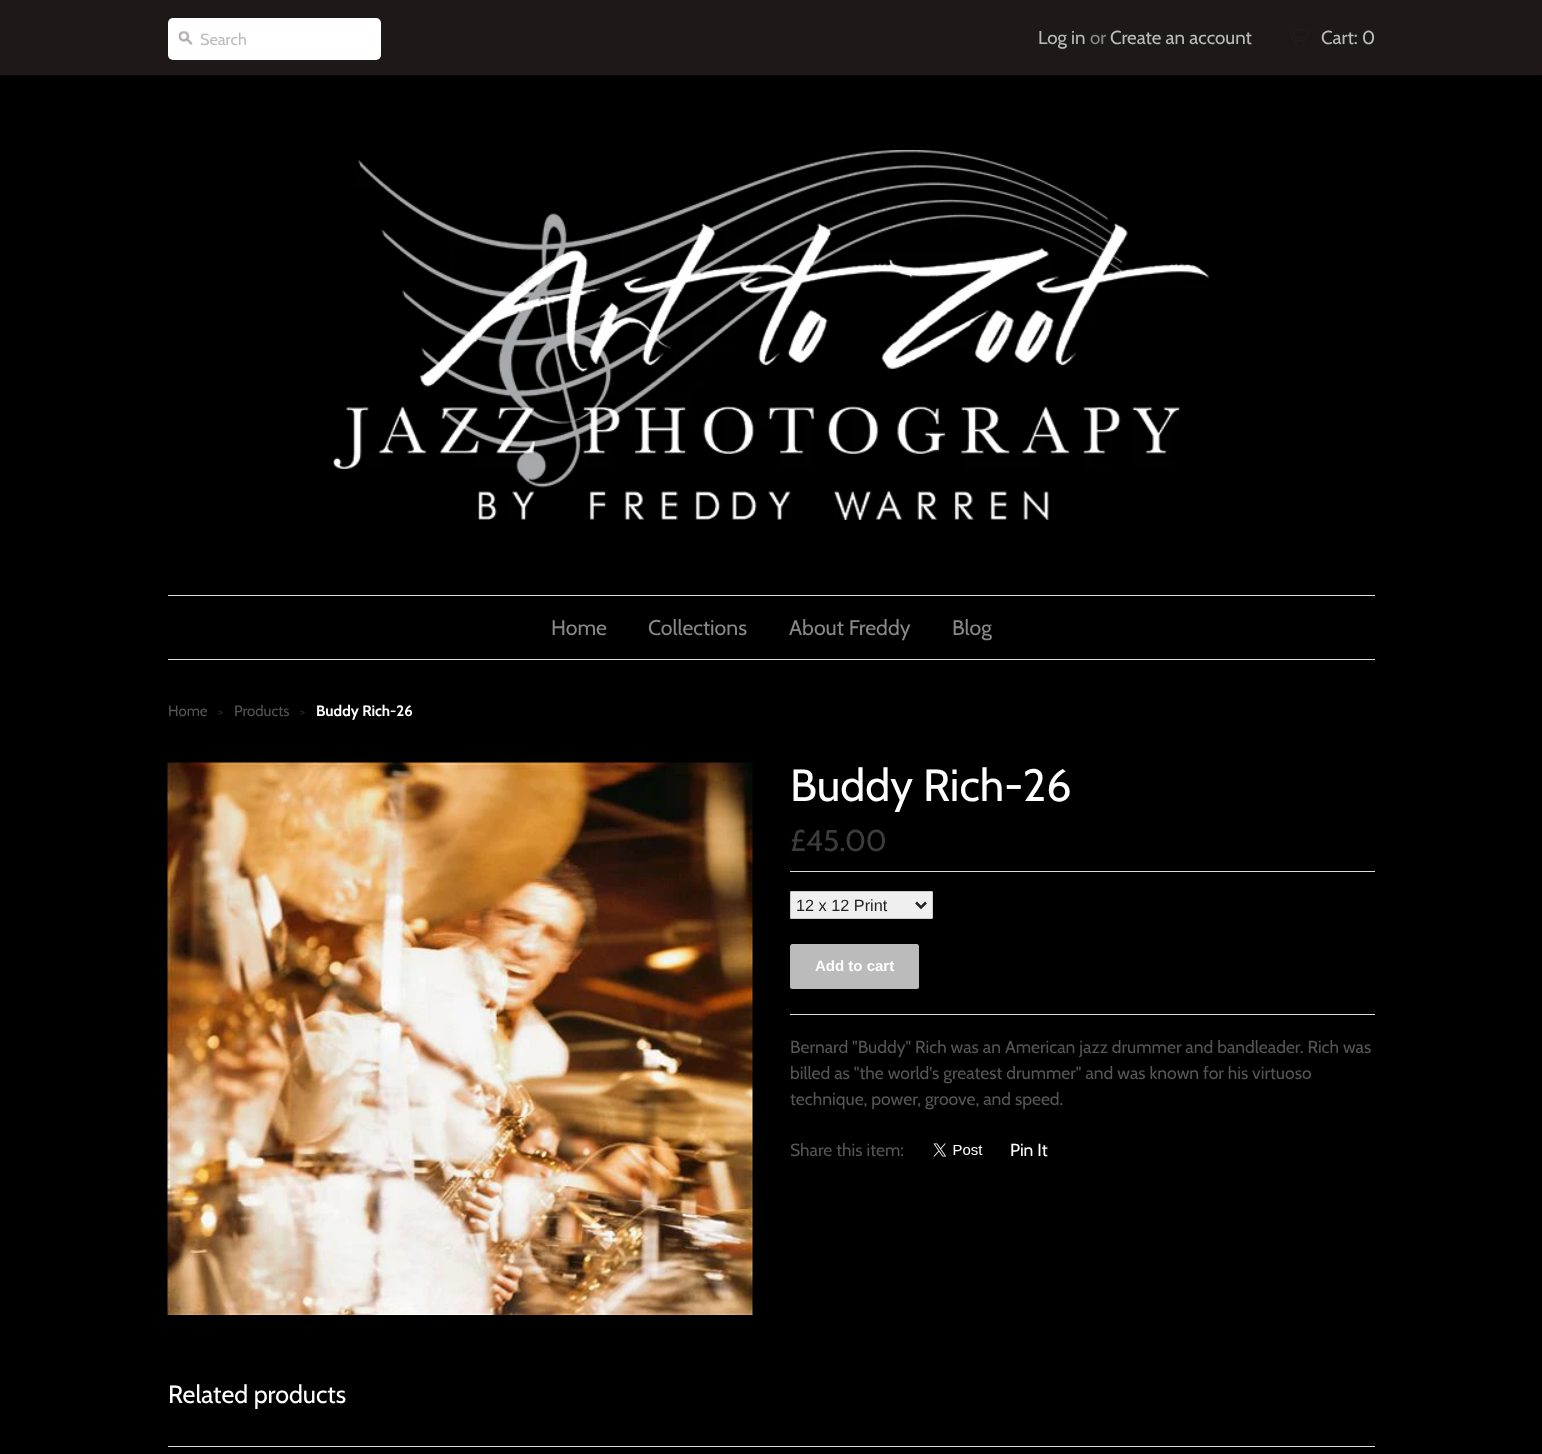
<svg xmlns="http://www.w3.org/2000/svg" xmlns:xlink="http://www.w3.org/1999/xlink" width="1542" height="1454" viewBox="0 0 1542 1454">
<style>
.cls-1{font:16.25px Cabin;fill:#bbbbbb}
.cls-2{font:18.75px Cabin;fill:#bbbbbb}
.cls-3{font:18.75px Cabin;fill:#888888}
.cls-4{font:21.25px Cabin;fill:#888888}
.cls-5{font:15px Cabin;fill:#555555}
.cls-6{font:12px Cabin;fill:#2b2b2b}
.cls-7{font:bold 15px Cabin;fill:#ffffff}
.cls-8{font:45px Cabin;fill:#ffffff}
.cls-9{font:30px Cabin;fill:#3c3c3c}
.cls-10{font:16.25px Liberation Sans;fill:#222222}
.cls-11{font:bold 15px Liberation Sans;fill:#ffffff}
.cls-12{font:17.5px Cabin;fill:#555555}
.cls-13{font:17.5px Cabin;fill:#ffffff}
.cls-14{font:25px Cabin;fill:#ffffff}
</style>
<rect width="100%" height="100%" fill="#000000"/>
<rect fill="#1f1818" x="0" y="0" width="1542" height="75"/>
<rect fill="#ffffff" x="168" y="18" width="213" height="42" rx="5"/>
<image xlink:href="image0.png" x="178" y="31" width="15" height="14"/>
<image xlink:href="image1.png" x="1288" y="28" width="20" height="17"/>
<image xlink:href="image2.png" x="333" y="150" width="876" height="370"/>
<rect fill="#dddddd" x="168" y="595" width="1207" height="1"/>
<rect fill="#dddddd" x="168" y="659" width="1207" height="1"/>
<image xlink:href="image3.png" x="167" y="762" width="586" height="553"/>
<rect fill="#dddddd" x="790" y="871" width="585" height="1"/>
<rect fill="#dddddd" x="790" y="1014" width="585" height="1"/>
<rect fill="#efefef" stroke="#cccccc" x="790.5" y="891.5" width="142" height="27" rx="0.5"/>
<path fill="none" stroke="#222222" stroke-width="2.5" d="M916 902.5L921 907.5L926 902.5"/>
<rect fill="#bbbbbb" x="790" y="944" width="129" height="45" rx="2.5"/>
<image xlink:href="image4.png" x="933" y="1143" width="50" height="14"/>
<rect fill="#dddddd" x="168" y="1446" width="1207" height="1"/>
<text class="cls-1" x="200" y="45">Search</text>
<text class="cls-2" x="1038" y="44">Log in</text>
<text class="cls-3" x="1090" y="44">or</text>
<text class="cls-2" x="1110" y="44">Create an account</text>
<text class="cls-2" x="1321" y="44">Cart: 0</text>
<text class="cls-4" x="551" y="635">Home</text>
<text class="cls-4" x="648" y="635">Collections</text>
<text class="cls-4" x="789" y="635">About Freddy</text>
<text class="cls-4" x="952" y="635">Blog</text>
<text class="cls-5" x="168" y="716">Home</text>
<text class="cls-6" x="218" y="716">&gt;</text>
<text class="cls-5" x="234" y="716">Products</text>
<text class="cls-6" x="300" y="716">&gt;</text>
<text class="cls-7" x="316" y="716">Buddy Rich-26</text>
<text class="cls-8" x="790" y="801">Buddy Rich-26</text>
<text class="cls-9" x="790" y="851">£45.00</text>
<text class="cls-10" x="796" y="911">12 x 12 Print</text>
<text class="cls-11" x="815" y="971">Add to cart</text>
<text class="cls-12"><tspan x="790" y="1053">Bernard "Buddy" Rich was an American jazz drummer and bandleader. Rich was</tspan><tspan x="790" y="1079">billed as "the world's greatest drummer" and was known for his virtuoso</tspan><tspan x="790" y="1105">technique, power, groove, and speed.</tspan></text>
<text class="cls-12" x="790" y="1156">Share this item:</text>
<text class="cls-13" x="1010" y="1156">Pin It</text>
<text class="cls-14" x="168" y="1403">Related products</text>
</svg>
